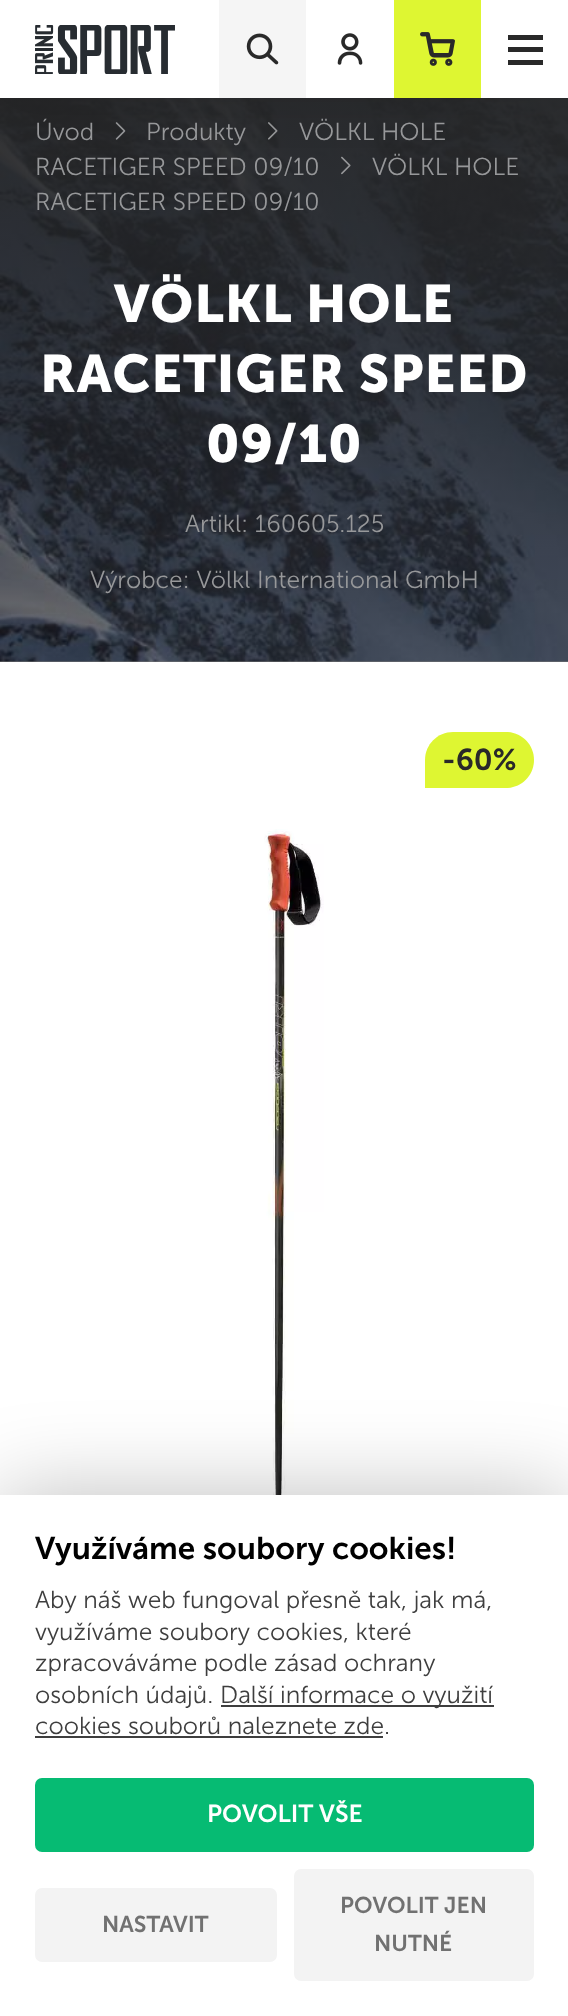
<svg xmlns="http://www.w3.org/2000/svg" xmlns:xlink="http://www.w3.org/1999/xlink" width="568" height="2016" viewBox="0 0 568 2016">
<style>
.cls-1{font:300 24.5px 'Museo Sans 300';fill:#97989a}
.cls-2{font:bold 52.5px 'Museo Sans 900';letter-spacing:1px;fill:#ffffff}
.cls-3{font:600 30px 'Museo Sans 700';fill:#292929}
.cls-4{font:600 31.5px 'Museo Sans 700';fill:#000000}
.cls-5{font:300 24.5px 'Museo Sans 300';fill:#3e3e3e}
.cls-6{font:600 24.5px 'Museo Sans 700';fill:#ffffff}
.cls-7{font:600 22.75px 'Museo Sans 700';fill:#717171}
</style>
<defs>
<linearGradient id="g1" gradientUnits="userSpaceOnUse" x1="284" y1="0" x2="284" y2="662"><stop offset="0" stop-color="#292929"/><stop offset="1" stop-color="#000000" stop-opacity="0.53"/></linearGradient>
</defs>
<rect width="100%" height="100%" fill="#ffffff"/>
<image xlink:href="image4.png" x="0" y="98" width="568" height="564"/>
<rect fill="url(#g1)" x="0" y="98" width="568" height="564"/>
<image xlink:href="image5.png" x="115" y="122" width="11" height="18"/>
<image xlink:href="image6.png" x="341" y="156" width="10" height="19"/>
<image xlink:href="image7.png" x="268" y="122" width="10" height="18"/>
<rect fill="#000000" fill-opacity="0.1" filter="blur(26px)" x="0" y="0" width="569" height="98"/>
<rect fill="#ffffff" x="0" y="0" width="568" height="98"/>
<image xlink:href="image0.png" x="35" y="25" width="140" height="49"/>
<rect fill="#f5f5f5" x="219" y="0" width="87" height="98"/>
<image xlink:href="image1.png" x="246" y="33" width="33" height="32"/>
<image xlink:href="image2.png" x="337" y="33" width="26" height="32"/>
<rect fill="#def632" x="394" y="0" width="87" height="98"/>
<image xlink:href="image3.png" x="420" y="32" width="35" height="34"/>
<rect fill="#292929" x="508" y="35" width="35" height="5"/>
<rect fill="#292929" x="508" y="47" width="35" height="5"/>
<rect fill="#292929" x="508" y="60" width="35" height="5"/>
<path fill="#def632" d="M453 732H506C521.5 732 534 744.5 534 760C534 775.5 521.5 788 506 788H425V760C425 744.5 437.5 732 453 732Z"/>
<image xlink:href="image8.png" x="264" y="829" width="60" height="666"/>
<rect fill="#000000" fill-opacity="0.25" filter="blur(44px)" x="0" y="1495" width="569" height="521"/>
<rect fill="#ffffff" x="0" y="1495" width="568" height="521"/>
<rect fill="#3e3e3e" x="221" y="1705" width="273" height="2"/>
<rect fill="#3e3e3e" x="35" y="1736" width="348" height="2"/>
<rect fill="#06bb73" x="35" y="1778" width="499" height="74" rx="7"/>
<rect fill="#f3f3f3" x="35" y="1888" width="242" height="74" rx="7"/>
<rect fill="#f3f3f3" x="294" y="1869" width="240" height="112" rx="7"/>
<text class="cls-1" x="35" y="140">Úvod</text>
<text class="cls-1" x="299" y="140">VÖLKL HOLE</text>
<text class="cls-1" x="35" y="175">RACETIGER SPEED 09/10</text>
<text class="cls-1" x="146" y="140">Produkty</text>
<text class="cls-1" x="372" y="175">VÖLKL HOLE</text>
<text class="cls-1" x="35" y="210">RACETIGER SPEED 09/10</text>
<text class="cls-2" x="114" y="322">VÖLKL HOLE</text>
<text class="cls-2" x="40" y="392">RACETIGER SPEED</text>
<text class="cls-2" x="206" y="462">09/10</text>
<text class="cls-1" x="185" y="532">Artikl: 160605.125</text>
<text class="cls-1" x="90" y="588">Výrobce: Völkl International GmbH</text>
<text class="cls-3" x="442" y="770">-60%</text>
<text class="cls-4" x="35" y="1559">Využíváme soubory cookies!</text>
<text class="cls-5"><tspan x="35" y="1608">Aby náš web fungoval přesně tak, jak má,</tspan><tspan x="35" y="1640">využíváme soubory cookies, které</tspan><tspan x="35" y="1671">zpracováváme podle zásad ochrany</tspan><tspan x="35" y="1703">osobních údajů.</tspan></text>
<text class="cls-5" x="220" y="1703">Další informace o využití</text>
<text class="cls-5" x="35" y="1734">cookies souborů naleznete zde.</text>
<text class="cls-6" x="207" y="1822">POVOLIT VŠE</text>
<text class="cls-7" x="102" y="1932">NASTAVIT</text>
<text class="cls-7" x="340" y="1913">POVOLIT JEN</text>
<text class="cls-7" x="374" y="1951">NUTNÉ</text>
</svg>
